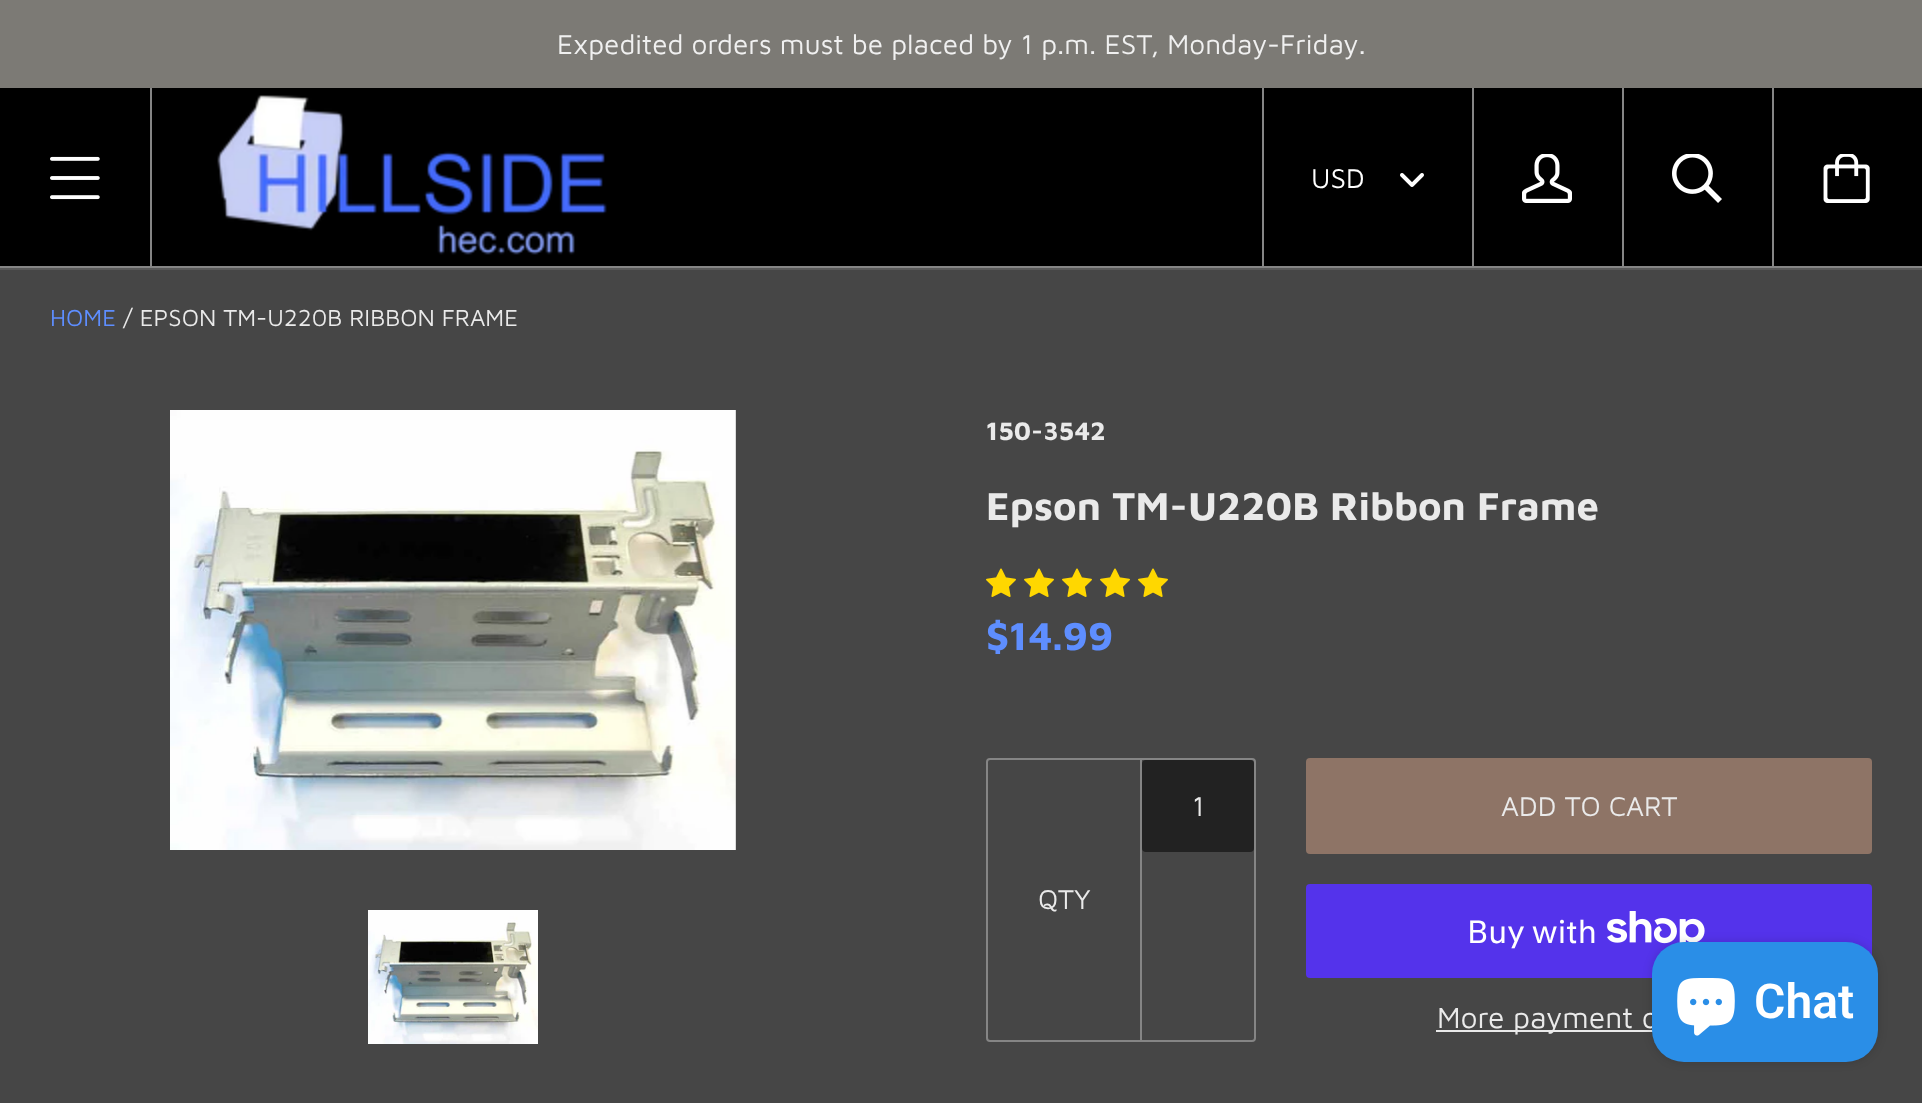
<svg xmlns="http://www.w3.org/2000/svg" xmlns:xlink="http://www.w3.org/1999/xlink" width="1922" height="1103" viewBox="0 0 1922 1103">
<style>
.cls-1{font:28px Maven Pro;fill:#f0f0f0}
.cls-2{font:28px Maven Pro;fill:#ffffff}
.cls-3{font:24px Maven Pro;fill:#5e8eff}
.cls-4{font:24px Maven Pro;fill:#eaeaea}
.cls-5{font:bold 26px Maven Pro;fill:#eaeaea}
.cls-6{font:bold 40px Maven Pro;fill:#eaeaea}
.cls-7{font:bold 40px Maven Pro;fill:#5e8eff}
.cls-8{font:28px Maven Pro;fill:#eaeaea}
.cls-9{font:32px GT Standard;fill:#ffffff}
.cls-10{font:30px Maven Pro;fill:#eaeaea}
.cls-11{font:600 48px Roboto;fill:#ffffff}
</style>
<rect width="100%" height="100%" fill="#464646"/>
<rect fill="#7c7a75" x="0" y="0" width="1922" height="88"/>
<rect fill="#595959" x="0" y="268" width="1922" height="2"/>
<rect fill="#000000" x="0" y="88" width="1922" height="178"/>
<rect fill="#858585" x="0" y="266" width="1922" height="2"/>
<image xlink:href="image0.png" x="50" y="156" width="50" height="44"/>
<rect fill="#858585" x="150" y="88" width="2" height="178"/>
<image xlink:href="image1.png" x="217" y="95" width="390" height="160"/>
<rect fill="#858585" x="1262" y="88" width="2" height="178"/>
<image xlink:href="image2.png" x="1400" y="173" width="24" height="14"/>
<rect fill="#858585" x="1472" y="88" width="2" height="178"/>
<image xlink:href="image3.png" x="1522" y="154" width="50" height="49"/>
<rect fill="#858585" x="1622" y="88" width="2" height="178"/>
<image xlink:href="image4.png" x="1672" y="154" width="50" height="49"/>
<rect fill="#858585" x="1772" y="88" width="2" height="178"/>
<image xlink:href="image5.png" x="1823" y="154" width="47" height="49"/>
<image xlink:href="image6.png" x="170" y="410" width="566" height="440"/>
<image xlink:href="image7.png" x="368" y="910" width="170" height="134"/>
<image xlink:href="image8.png" x="986" y="568" width="30" height="29"/>
<image xlink:href="image8.png" x="1024" y="568" width="30" height="29"/>
<image xlink:href="image8.png" x="1062" y="568" width="30" height="29"/>
<image xlink:href="image8.png" x="1100" y="568" width="30" height="29"/>
<image xlink:href="image8.png" x="1138" y="568" width="30" height="29"/>
<rect fill="none" stroke="#858585" stroke-width="2" x="987" y="759" width="268" height="282" rx="3"/>
<rect fill="#222222" x="1142" y="760" width="112" height="92" rx="4"/>
<rect fill="#858585" x="1140" y="760" width="2" height="280"/>
<rect fill="#8e7466" x="1306" y="758" width="566" height="96" rx="4"/>
<rect fill="#5433eb" x="1306" y="884" width="566" height="94" rx="4"/>
<image xlink:href="image9.png" x="1607" y="911" width="98" height="33"/>
<rect fill="#eaeaea" x="1436" y="1030" width="217" height="2"/>
<rect fill="#000000" fill-opacity="0.15" filter="blur(5px)" x="1652" y="942" width="226" height="120" rx="32"/>
<text class="cls-1" x="557" y="54">Expedited orders must be placed by 1 p.m. EST, Monday-Friday.</text>
<text class="cls-2" x="1311" y="188">USD</text>
<text class="cls-3" x="50" y="326">HOME</text>
<text class="cls-4" x="123" y="326">/ EPSON TM-U220B RIBBON FRAME</text>
<text class="cls-5" x="986" y="440">150-3542</text>
<text class="cls-6" x="986" y="520">Epson TM-U220B Ribbon Frame</text>
<text class="cls-7" x="986" y="650">$14.99</text>
<text class="cls-8" x="1192" y="816">1</text>
<text class="cls-8" x="1038" y="909">QTY</text>
<text class="cls-8" x="1501" y="816">ADD TO CART</text>
<text class="cls-9" x="1467" y="943">Buy with</text>
<text class="cls-10" x="1437" y="1028">More payment o</text>
<rect fill="#2a8ee7" x="1652" y="942" width="226" height="120" rx="32"/>
<image xlink:href="image10.png" x="1677" y="978" width="58" height="58"/>
<text class="cls-11" x="1754" y="1018">Chat</text>
</svg>
